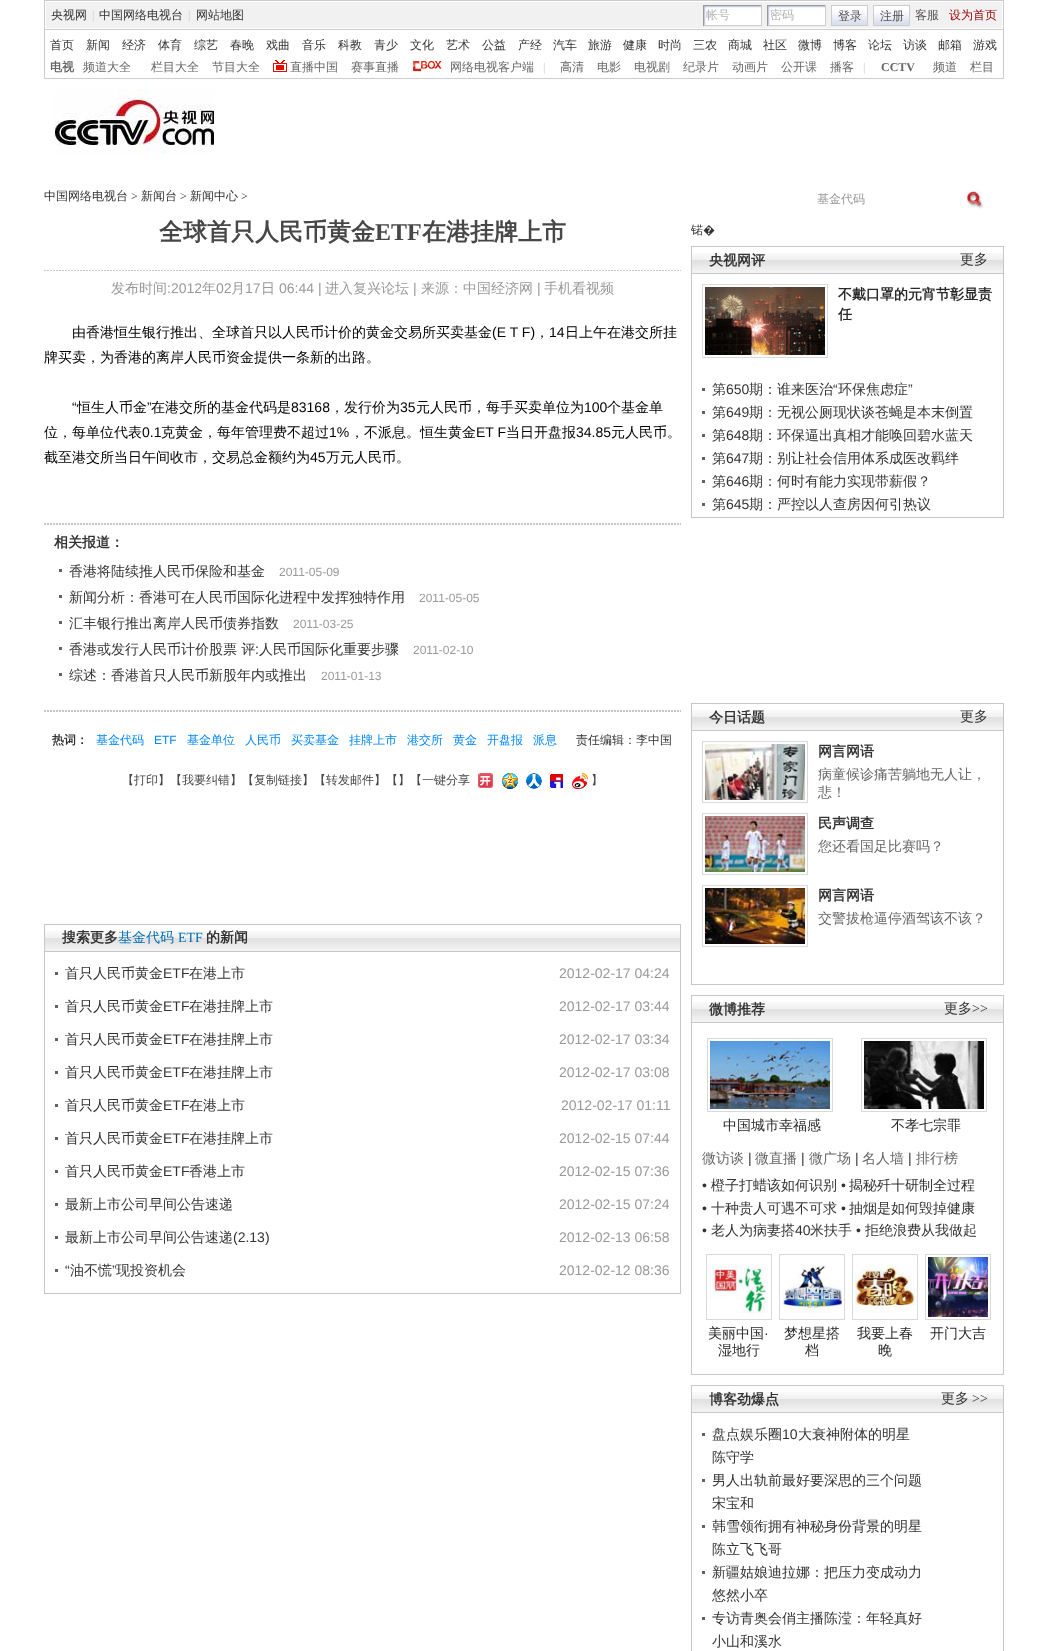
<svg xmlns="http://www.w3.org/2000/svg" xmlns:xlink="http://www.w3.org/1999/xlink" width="1048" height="1651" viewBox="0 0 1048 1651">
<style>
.cls-1{font:500 12px WenQuanYi Zen Hei;fill:#333333}
.cls-2{font:12px Liberation Serif;fill:#cccccc}
.cls-3{font:500 12px WenQuanYi Zen Hei;fill:#b2b2b2}
.cls-4{font:500 12px WenQuanYi Zen Hei;fill:#585252}
.cls-5{font:500 12px WenQuanYi Zen Hei;fill:#990000}
.cls-6{font:bold 12px WenQuanYi Zen Hei;fill:#666666}
.cls-7{font:500 12px WenQuanYi Zen Hei;fill:#666666}
.cls-8{font:bold 12px Liberation Serif;fill:#666666}
.cls-9{font:12px Liberation Serif;fill:#333333}
.cls-10{font:500 12px WenQuanYi Zen Hei;fill:#999999}
.cls-11{font:bold 24px WenQuanYi Zen Hei;fill:#474747}
.cls-12{font:bold 24px Liberation Serif;fill:#474747}
.cls-13{font:500 14px WenQuanYi Zen Hei;fill:#999999}
.cls-14{font:14px Liberation Sans;fill:#999999}
.cls-15{font:12px Noto Sans;fill:#333333}
.cls-16{font:bold 14px WenQuanYi Zen Hei;fill:#333333}
.cls-17{font:500 14px WenQuanYi Zen Hei;fill:#333333}
.cls-18{font:bold 14px WenQuanYi Zen Hei;fill:#292929}
.cls-19{font:14px Liberation Sans;fill:#333333}
.cls-20{font:500 14px WenQuanYi Zen Hei;fill:#666666}
.cls-21{font:14px Liberation Serif;fill:#333333}
.cls-22{font:500 14px WenQuanYi Zen Hei;fill:#292929}
.cls-23{font:14px Liberation Sans;fill:#292929}
.cls-24{font:500 14px WenQuanYi Zen Hei;fill:#000000}
.cls-25{font:14px Liberation Sans;fill:#000000}
.cls-26{font:12px Liberation Sans;fill:#999999}
.cls-27{font:bold 12px WenQuanYi Zen Hei;fill:#333333}
.cls-28{font:500 12px WenQuanYi Zen Hei;fill:#0088fe}
.cls-29{font:12px Liberation Sans;fill:#0088fe}
.cls-30{font:500 12px WenQuanYi Zen Hei;fill:#474747}
.cls-31{font:500 14px WenQuanYi Zen Hei;fill:#046fb1}
.cls-32{font:14px Liberation Serif;fill:#046fb1}
</style>
<rect width="100%" height="100%" fill="#ffffff"/>
<rect fill="none" stroke="#cccccc" x="44.5" y="0.5" width="959" height="78"/>
<rect fill="#f1f1f1" x="46" y="2" width="956" height="26"/>
<image xlink:href="image0.png" x="704" y="6" width="57" height="19"/>
<rect fill="#9a9a9a" x="703" y="5" width="59" height="1"/>
<rect fill="#cdcdcd" x="761" y="5" width="1" height="21"/>
<rect fill="#cdcdcd" x="703" y="25" width="59" height="1"/>
<rect fill="#9a9a9a" x="703" y="5" width="1" height="21"/>
<image xlink:href="image0.png" x="768" y="6" width="57" height="19"/>
<rect fill="#9a9a9a" x="767" y="5" width="59" height="1"/>
<rect fill="#cdcdcd" x="825" y="5" width="1" height="21"/>
<rect fill="#cdcdcd" x="767" y="25" width="59" height="1"/>
<rect fill="#9a9a9a" x="767" y="5" width="1" height="21"/>
<image xlink:href="image1.png" x="832" y="6" width="35" height="19"/>
<rect fill="none" stroke="#cdcdcd" x="831.5" y="5.5" width="36" height="20"/>
<image xlink:href="image1.png" x="874" y="6" width="35" height="19"/>
<rect fill="none" stroke="#cdcdcd" x="873.5" y="5.5" width="36" height="20"/>
<rect fill="#cccccc" x="45" y="29" width="958" height="1"/>
<image xlink:href="image2.png" x="273" y="60" width="14" height="12"/>
<image xlink:href="image3.png" x="412" y="60" width="30" height="12"/>
<image xlink:href="image4.png" x="54" y="89" width="160" height="65"/>
<image xlink:href="image5.png" x="966" y="190" width="18" height="19"/>
<image xlink:href="image6.png" x="44" y="270" width="637" height="1"/>
<rect fill="none" stroke="#c7c7c7" x="691.5" y="246.5" width="312" height="271"/>
<image xlink:href="image7.png" x="692" y="253" width="311" height="20"/>
<rect fill="#c7c7c7" x="692" y="273" width="311" height="1"/>
<rect fill="none" stroke="#d9d9d9" x="702.5" y="284.5" width="125" height="73"/>
<image xlink:href="image8.png" x="705" y="287" width="120" height="68"/>
<rect fill="#626262" x="702" y="388" width="3" height="3"/>
<rect fill="#626262" x="702" y="411" width="3" height="3"/>
<rect fill="#626262" x="702" y="434" width="3" height="3"/>
<rect fill="#626262" x="702" y="457" width="3" height="3"/>
<rect fill="#626262" x="702" y="480" width="3" height="3"/>
<rect fill="#626262" x="702" y="503" width="3" height="3"/>
<rect fill="none" stroke="#c7c7c7" x="691.5" y="703.5" width="312" height="281"/>
<image xlink:href="image7.png" x="692" y="710" width="311" height="20"/>
<rect fill="#c7c7c7" x="692" y="730" width="311" height="1"/>
<rect fill="none" stroke="#d9d9d9" x="702.5" y="741.5" width="105" height="61"/>
<image xlink:href="image9.png" x="705" y="744" width="100" height="56"/>
<rect fill="none" stroke="#d9d9d9" x="702.5" y="813.5" width="105" height="61"/>
<image xlink:href="image10.png" x="705" y="816" width="100" height="56"/>
<rect fill="none" stroke="#d9d9d9" x="702.5" y="885.5" width="105" height="61"/>
<image xlink:href="image11.png" x="705" y="888" width="100" height="56"/>
<rect fill="none" stroke="#c7c7c7" x="691.5" y="995.5" width="312" height="379"/>
<image xlink:href="image7.png" x="692" y="1002" width="311" height="20"/>
<rect fill="#c7c7c7" x="692" y="1022" width="311" height="1"/>
<rect fill="none" stroke="#d9d9d9" x="707.5" y="1038.5" width="125" height="73"/>
<image xlink:href="image12.png" x="710" y="1041" width="120" height="68"/>
<rect fill="none" stroke="#d9d9d9" x="861.5" y="1038.5" width="125" height="73"/>
<image xlink:href="image13.png" x="864" y="1041" width="120" height="68"/>
<rect fill="none" stroke="#d9d9d9" x="706.5" y="1254.5" width="65" height="65"/>
<image xlink:href="image14.png" x="709" y="1265" width="58" height="50"/>
<rect fill="none" stroke="#d9d9d9" x="779.5" y="1254.5" width="65" height="65"/>
<image xlink:href="image15.png" x="782" y="1265" width="60" height="49"/>
<rect fill="none" stroke="#d9d9d9" x="852.5" y="1254.5" width="65" height="65"/>
<image xlink:href="image16.png" x="855" y="1264" width="60" height="49"/>
<rect fill="none" stroke="#d9d9d9" x="925.5" y="1254.5" width="65" height="65"/>
<image xlink:href="image17.png" x="928" y="1257" width="60" height="60"/>
<rect fill="none" stroke="#c7c7c7" x="691.5" y="1385.5" width="312" height="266"/>
<image xlink:href="image7.png" x="692" y="1392" width="311" height="20"/>
<rect fill="#c7c7c7" x="692" y="1412" width="311" height="1"/>
<rect fill="#626262" x="702" y="1433" width="3" height="3"/>
<rect fill="#626262" x="702" y="1479" width="3" height="3"/>
<rect fill="#626262" x="702" y="1525" width="3" height="3"/>
<rect fill="#626262" x="702" y="1571" width="3" height="3"/>
<rect fill="#626262" x="702" y="1617" width="3" height="3"/>
<image xlink:href="image18.png" x="44" y="523" width="637" height="2"/>
<rect fill="#626262" x="59" y="569" width="3" height="3"/>
<rect fill="#626262" x="59" y="595" width="3" height="3"/>
<rect fill="#626262" x="59" y="621" width="3" height="3"/>
<rect fill="#626262" x="59" y="647" width="3" height="3"/>
<rect fill="#626262" x="59" y="673" width="3" height="3"/>
<image xlink:href="image18.png" x="44" y="710" width="637" height="2"/>
<image xlink:href="image19.png" x="478" y="773" width="15" height="15"/>
<image xlink:href="image20.png" x="502" y="773" width="16" height="16"/>
<image xlink:href="image21.png" x="526" y="773" width="16" height="16"/>
<image xlink:href="image22.png" x="550" y="774" width="13" height="14"/>
<image xlink:href="image23.png" x="572" y="773" width="16" height="16"/>
<rect fill="none" stroke="#c7c7c7" x="44.5" y="924.5" width="636" height="369"/>
<image xlink:href="image24.png" x="45" y="931" width="635" height="20"/>
<rect fill="#c7c7c7" x="45" y="951" width="635" height="1"/>
<rect fill="#626262" x="55" y="972" width="3" height="3"/>
<rect fill="#626262" x="55" y="1005" width="3" height="3"/>
<rect fill="#626262" x="55" y="1038" width="3" height="3"/>
<rect fill="#626262" x="55" y="1071" width="3" height="3"/>
<rect fill="#626262" x="55" y="1104" width="3" height="3"/>
<rect fill="#626262" x="55" y="1137" width="3" height="3"/>
<rect fill="#626262" x="55" y="1170" width="3" height="3"/>
<rect fill="#626262" x="55" y="1203" width="3" height="3"/>
<rect fill="#626262" x="55" y="1236" width="3" height="3"/>
<rect fill="#626262" x="55" y="1269" width="3" height="3"/>
<text class="cls-1" x="51" y="19">央视网</text>
<text class="cls-2" x="92" y="19">|</text>
<text class="cls-1" x="99" y="19">中国网络电视台</text>
<text class="cls-2" x="188" y="19">|</text>
<text class="cls-1" x="196" y="19">网站地图</text>
<text class="cls-3" x="706" y="19">帐号</text>
<text class="cls-3" x="770" y="19">密码</text>
<text class="cls-4" x="838" y="20">登录</text>
<text class="cls-4" x="880" y="20">注册</text>
<text class="cls-4" x="915" y="19">客服</text>
<text class="cls-5" x="949" y="19">设为首页</text>
<text class="cls-1" x="50" y="49">首页</text>
<text class="cls-1" x="86" y="49">新闻</text>
<text class="cls-1" x="122" y="49">经济</text>
<text class="cls-1" x="158" y="49">体育</text>
<text class="cls-1" x="194" y="49">综艺</text>
<text class="cls-1" x="230" y="49">春晚</text>
<text class="cls-1" x="266" y="49">戏曲</text>
<text class="cls-1" x="302" y="49">音乐</text>
<text class="cls-1" x="338" y="49">科教</text>
<text class="cls-1" x="374" y="49">青少</text>
<text class="cls-1" x="410" y="49">文化</text>
<text class="cls-1" x="446" y="49">艺术</text>
<text class="cls-1" x="482" y="49">公益</text>
<text class="cls-1" x="518" y="49">产经</text>
<text class="cls-1" x="553" y="49">汽车</text>
<text class="cls-1" x="588" y="49">旅游</text>
<text class="cls-1" x="623" y="49">健康</text>
<text class="cls-1" x="658" y="49">时尚</text>
<text class="cls-1" x="693" y="49">三农</text>
<text class="cls-1" x="728" y="49">商城</text>
<text class="cls-1" x="763" y="49">社区</text>
<text class="cls-1" x="798" y="49">微博</text>
<text class="cls-1" x="833" y="49">博客</text>
<text class="cls-1" x="868" y="49">论坛</text>
<text class="cls-1" x="903" y="49">访谈</text>
<text class="cls-1" x="938" y="49">邮箱</text>
<text class="cls-1" x="973" y="49">游戏</text>
<text class="cls-6" x="50" y="71">电视</text>
<text class="cls-7" x="83" y="71">频道大全</text>
<text class="cls-7" x="151" y="71">栏目大全</text>
<text class="cls-7" x="212" y="71">节目大全</text>
<text class="cls-7" x="290" y="71">直播中国</text>
<text class="cls-7" x="351" y="71">赛事直播</text>
<text class="cls-7" x="450" y="71">网络电视客户端</text>
<text class="cls-2" x="543" y="71">|</text>
<text class="cls-7" x="560" y="71">高清</text>
<text class="cls-7" x="597" y="71">电影</text>
<text class="cls-7" x="634" y="71">电视剧</text>
<text class="cls-7" x="683" y="71">纪录片</text>
<text class="cls-7" x="732" y="71">动画片</text>
<text class="cls-7" x="781" y="71">公开课</text>
<text class="cls-7" x="830" y="71">播客</text>
<text class="cls-2" x="863" y="71">|</text>
<text class="cls-8" x="881" y="71">CCTV</text>
<text class="cls-7" x="933" y="71">频道</text>
<text class="cls-7" x="970" y="71">栏目</text>
<text class="cls-1" x="44" y="200">中国网络电视台</text>
<text class="cls-9" x="131" y="200">&gt;</text>
<text class="cls-1" x="141" y="200">新闻台</text>
<text class="cls-9" x="180" y="200">&gt;</text>
<text class="cls-1" x="190" y="200">新闻中心</text>
<text class="cls-9" x="241" y="200">&gt;</text>
<text class="cls-10" x="817" y="203">基金代码</text>
<text class="cls-11" x="159" y="240">全球首只人民币黄金</text>
<text class="cls-12" x="375" y="240">ETF</text>
<text class="cls-11" x="422" y="240">在港挂牌上市</text>
<text class="cls-13" x="111" y="293">发布时间</text>
<text class="cls-14" x="167" y="293">:2012</text>
<text class="cls-13" x="202" y="293">年</text>
<text class="cls-14" x="216" y="293">02</text>
<text class="cls-13" x="231" y="293">月</text>
<text class="cls-14" x="245" y="293">17</text>
<text class="cls-13" x="261" y="293">日</text>
<text class="cls-14" x="279" y="293">06:44 |</text>
<text class="cls-13" x="325" y="293">进入复兴论坛</text>
<text class="cls-14" x="413" y="293">|</text>
<text class="cls-13" x="421" y="293">来源：中国经济网</text>
<text class="cls-14" x="537" y="293">|</text>
<text class="cls-13" x="544" y="293">手机看视频</text>
<text class="cls-1" x="691" y="234">锘</text>
<text class="cls-15" x="703" y="234">�</text>
<text class="cls-16" x="709" y="265">央视网评</text>
<text class="cls-17" x="960" y="264">更多</text>
<text class="cls-18"><tspan x="838" y="299">不戴口罩的元宵节彰显责</tspan><tspan x="838" y="319">任</tspan></text>
<text class="cls-17" x="712" y="394">第</text>
<text class="cls-19" x="726" y="394">650</text>
<text class="cls-17" x="749" y="394">期：谁来医治</text>
<text class="cls-19" x="833" y="394">“</text>
<text class="cls-17" x="838" y="394">环保焦虑症</text>
<text class="cls-19" x="908" y="394">”</text>
<text class="cls-17" x="712" y="417">第</text>
<text class="cls-19" x="726" y="417">649</text>
<text class="cls-17" x="749" y="417">期：无视公厕现状谈苍蝇是本末倒置</text>
<text class="cls-17" x="712" y="440">第</text>
<text class="cls-19" x="726" y="440">648</text>
<text class="cls-17" x="749" y="440">期：环保逼出真相才能唤回碧水蓝天</text>
<text class="cls-17" x="712" y="463">第</text>
<text class="cls-19" x="726" y="463">647</text>
<text class="cls-17" x="749" y="463">期：别让社会信用体系成医改羁绊</text>
<text class="cls-17" x="712" y="486">第</text>
<text class="cls-19" x="726" y="486">646</text>
<text class="cls-17" x="749" y="486">期：何时有能力实现带薪假？</text>
<text class="cls-17" x="712" y="509">第</text>
<text class="cls-19" x="726" y="509">645</text>
<text class="cls-17" x="749" y="509">期：严控以人查房因何引热议</text>
<text class="cls-16" x="709" y="722">今日话题</text>
<text class="cls-17" x="960" y="721">更多</text>
<text class="cls-16" x="818" y="756">网言网语</text>
<text class="cls-20"><tspan x="818" y="779">病童候诊痛苦躺地无人让，</tspan><tspan x="818" y="797">悲！</tspan></text>
<text class="cls-16" x="818" y="828">民声调查</text>
<text class="cls-20" x="818" y="851">您还看国足比赛吗？</text>
<text class="cls-16" x="818" y="900">网言网语</text>
<text class="cls-20" x="818" y="923">交警拔枪逼停酒驾该不该？</text>
<text class="cls-16" x="709" y="1014">微博推荐</text>
<text class="cls-17" x="944" y="1013">更多</text>
<text class="cls-21" x="972" y="1013">&gt;&gt;</text>
<text class="cls-22" x="723" y="1130">中国城市幸福感</text>
<text class="cls-22" x="891" y="1130">不孝七宗罪</text>
<text class="cls-20" x="702" y="1163">微访谈</text>
<text class="cls-19" x="748" y="1163">|</text>
<text class="cls-20" x="755" y="1163">微直播</text>
<text class="cls-19" x="801" y="1163">|</text>
<text class="cls-20" x="809" y="1163">微广场</text>
<text class="cls-19" x="855" y="1163">|</text>
<text class="cls-20" x="862" y="1163">名人墙</text>
<text class="cls-19" x="908" y="1163">|</text>
<text class="cls-20" x="916" y="1163">排行榜</text>
<text class="cls-19" x="702" y="1190">•</text>
<text class="cls-17" x="711" y="1190">橙子打蜡该如何识别</text>
<text class="cls-19" x="841" y="1190">•</text>
<text class="cls-17" x="849" y="1190">揭秘歼十研制全过程</text>
<text class="cls-19" x="702" y="1213">•</text>
<text class="cls-17" x="711" y="1213">十种贵人可遇不可求</text>
<text class="cls-19" x="841" y="1213">•</text>
<text class="cls-17" x="849" y="1213">抽烟是如何毁掉健康</text>
<text class="cls-19" x="702" y="1235">•</text>
<text class="cls-17" x="711" y="1235">老人为病妻搭</text>
<text class="cls-19" x="795" y="1235">40</text>
<text class="cls-17" x="810" y="1235">米扶手</text>
<text class="cls-19" x="856" y="1235">•</text>
<text class="cls-17" x="865" y="1235">拒绝浪费从我做起</text>
<text class="cls-22" x="708" y="1338">美丽中国</text>
<text class="cls-23" x="764" y="1338">·</text>
<text class="cls-22" x="718" y="1355">湿地行</text>
<text class="cls-22" x="784" y="1338">梦想星搭</text>
<text class="cls-22" x="805" y="1355">档</text>
<text class="cls-22" x="857" y="1338">我要上春</text>
<text class="cls-22" x="878" y="1355">晚</text>
<text class="cls-22" x="930" y="1338">开门大吉</text>
<text class="cls-16" x="709" y="1404">博客劲爆点</text>
<text class="cls-17" x="941" y="1403">更多</text>
<text class="cls-21" x="972" y="1403">&gt;&gt;</text>
<text class="cls-17" x="712" y="1439">盘点娱乐圈</text>
<text class="cls-19" x="782" y="1439">10</text>
<text class="cls-17" x="798" y="1439">大衰神附体的明星</text>
<text class="cls-17"><tspan x="712" y="1462">陈守学</tspan><tspan x="712" y="1485">男人出轨前最好要深思的三个问题</tspan><tspan x="712" y="1508">宋宝和</tspan><tspan x="712" y="1531">韩雪领衔拥有神秘身份背景的明星</tspan><tspan x="712" y="1554">陈立飞飞哥</tspan><tspan x="712" y="1577">新疆姑娘迪拉娜：把压力变成动力</tspan><tspan x="712" y="1600">悠然小卒</tspan><tspan x="712" y="1623">专访青奥会俏主播陈滢：年轻真好</tspan><tspan x="712" y="1646">小山和溪水</tspan></text>
<text class="cls-24" x="72" y="337">由香港恒生银行推出、全球首只以人民币计价的黄金交易所买卖基金</text>
<text class="cls-25" x="492" y="337">(E T F)</text>
<text class="cls-24" x="535" y="337">，</text>
<text class="cls-25" x="549" y="337">14</text>
<text class="cls-24" x="565" y="337">日上午在港交所挂</text>
<text class="cls-24" x="44" y="362">牌买卖，为香港的离岸人民币资金提供一条新的出路。</text>
<text class="cls-25" x="72" y="412">“</text>
<text class="cls-24" x="77" y="412">恒生人币金</text>
<text class="cls-25" x="147" y="412">”</text>
<text class="cls-24" x="151" y="412">在港交所的基金代码是</text>
<text class="cls-25" x="291" y="412">83168</text>
<text class="cls-24" x="330" y="412">，发行价为</text>
<text class="cls-25" x="400" y="412">35</text>
<text class="cls-24" x="416" y="412">元人民币，每手买卖单位为</text>
<text class="cls-25" x="584" y="412">100</text>
<text class="cls-24" x="607" y="412">个基金单</text>
<text class="cls-24" x="44" y="437">位，每单位代表</text>
<text class="cls-25" x="142" y="437">0.1</text>
<text class="cls-24" x="161" y="437">克黄金，每年管理费不超过</text>
<text class="cls-25" x="329" y="437">1%</text>
<text class="cls-24" x="350" y="437">，不派息。恒生黄金</text>
<text class="cls-25" x="476" y="437">ET F</text>
<text class="cls-24" x="506" y="437">当日开盘报</text>
<text class="cls-25" x="576" y="437">34.85</text>
<text class="cls-24" x="611" y="437">元人民币。</text>
<text class="cls-24" x="44" y="462">截至港交所当日午间收市，交易总金额约为</text>
<text class="cls-25" x="310" y="462">45</text>
<text class="cls-24" x="326" y="462">万元人民币。</text>
<text class="cls-16" x="54" y="547">相关报道：</text>
<text class="cls-17" x="69" y="576">香港将陆续推人民币保险和基金</text>
<text class="cls-26" x="279" y="576">2011-05-09</text>
<text class="cls-17" x="69" y="602">新闻分析：香港可在人民币国际化进程中发挥独特作用</text>
<text class="cls-26" x="419" y="602">2011-05-05</text>
<text class="cls-17" x="69" y="628">汇丰银行推出离岸人民币债券指数</text>
<text class="cls-26" x="293" y="628">2011-03-25</text>
<text class="cls-17" x="69" y="654">香港或发行人民币计价股票 评</text>
<text class="cls-19" x="255" y="654">:</text>
<text class="cls-17" x="259" y="654">人民币国际化重要步骤</text>
<text class="cls-26" x="413" y="654">2011-02-10</text>
<text class="cls-17" x="69" y="680">综述：香港首只人民币新股年内或推出</text>
<text class="cls-26" x="321" y="680">2011-01-13</text>
<text class="cls-27" x="52" y="744">热词：</text>
<text class="cls-28" x="96" y="744">基金代码</text>
<text class="cls-29" x="154" y="744">ETF</text>
<text class="cls-28" x="187" y="744">基金单位</text>
<text class="cls-28" x="245" y="744">人民币</text>
<text class="cls-28" x="291" y="744">买卖基金</text>
<text class="cls-28" x="349" y="744">挂牌上市</text>
<text class="cls-28" x="407" y="744">港交所</text>
<text class="cls-28" x="453" y="744">黄金</text>
<text class="cls-28" x="487" y="744">开盘报</text>
<text class="cls-28" x="533" y="744">派息</text>
<text class="cls-1" x="576" y="744">责任编辑：李中国</text>
<text class="cls-30" x="122" y="784">【打印】【我要纠错】【复制链接】【转发邮件】【】【一键分享</text>
<text class="cls-30" x="591" y="784">】</text>
<text class="cls-16" x="62" y="942">搜索更多</text>
<text class="cls-31" x="118" y="942">基金代码</text>
<text class="cls-32" x="178" y="942">ETF</text>
<text class="cls-16" x="206" y="942">的新闻</text>
<text class="cls-17" x="65" y="978">首只人民币黄金</text>
<text class="cls-19" x="163" y="978">ETF</text>
<text class="cls-17" x="189" y="978">在港上市</text>
<text class="cls-14" x="559" y="978">2012-02-17 04:24</text>
<text class="cls-17" x="65" y="1011">首只人民币黄金</text>
<text class="cls-19" x="163" y="1011">ETF</text>
<text class="cls-17" x="189" y="1011">在港挂牌上市</text>
<text class="cls-14" x="559" y="1011">2012-02-17 03:44</text>
<text class="cls-17" x="65" y="1044">首只人民币黄金</text>
<text class="cls-19" x="163" y="1044">ETF</text>
<text class="cls-17" x="189" y="1044">在港挂牌上市</text>
<text class="cls-14" x="559" y="1044">2012-02-17 03:34</text>
<text class="cls-17" x="65" y="1077">首只人民币黄金</text>
<text class="cls-19" x="163" y="1077">ETF</text>
<text class="cls-17" x="189" y="1077">在港挂牌上市</text>
<text class="cls-14" x="559" y="1077">2012-02-17 03:08</text>
<text class="cls-17" x="65" y="1110">首只人民币黄金</text>
<text class="cls-19" x="163" y="1110">ETF</text>
<text class="cls-17" x="189" y="1110">在港上市</text>
<text class="cls-14" x="561" y="1110">2012-02-17 01:11</text>
<text class="cls-17" x="65" y="1143">首只人民币黄金</text>
<text class="cls-19" x="163" y="1143">ETF</text>
<text class="cls-17" x="189" y="1143">在港挂牌上市</text>
<text class="cls-14" x="559" y="1143">2012-02-15 07:44</text>
<text class="cls-17" x="65" y="1176">首只人民币黄金</text>
<text class="cls-19" x="163" y="1176">ETF</text>
<text class="cls-17" x="189" y="1176">香港上市</text>
<text class="cls-14" x="559" y="1176">2012-02-15 07:36</text>
<text class="cls-17" x="65" y="1209">最新上市公司早间公告速递</text>
<text class="cls-14" x="559" y="1209">2012-02-15 07:24</text>
<text class="cls-17" x="65" y="1242">最新上市公司早间公告速递</text>
<text class="cls-19" x="233" y="1242">(2.13)</text>
<text class="cls-14" x="559" y="1242">2012-02-13 06:58</text>
<text class="cls-19" x="65" y="1275">“</text>
<text class="cls-17" x="70" y="1275">油不慌</text>
<text class="cls-19" x="112" y="1275">”</text>
<text class="cls-17" x="116" y="1275">现投资机会</text>
<text class="cls-14" x="559" y="1275">2012-02-12 08:36</text>
</svg>
